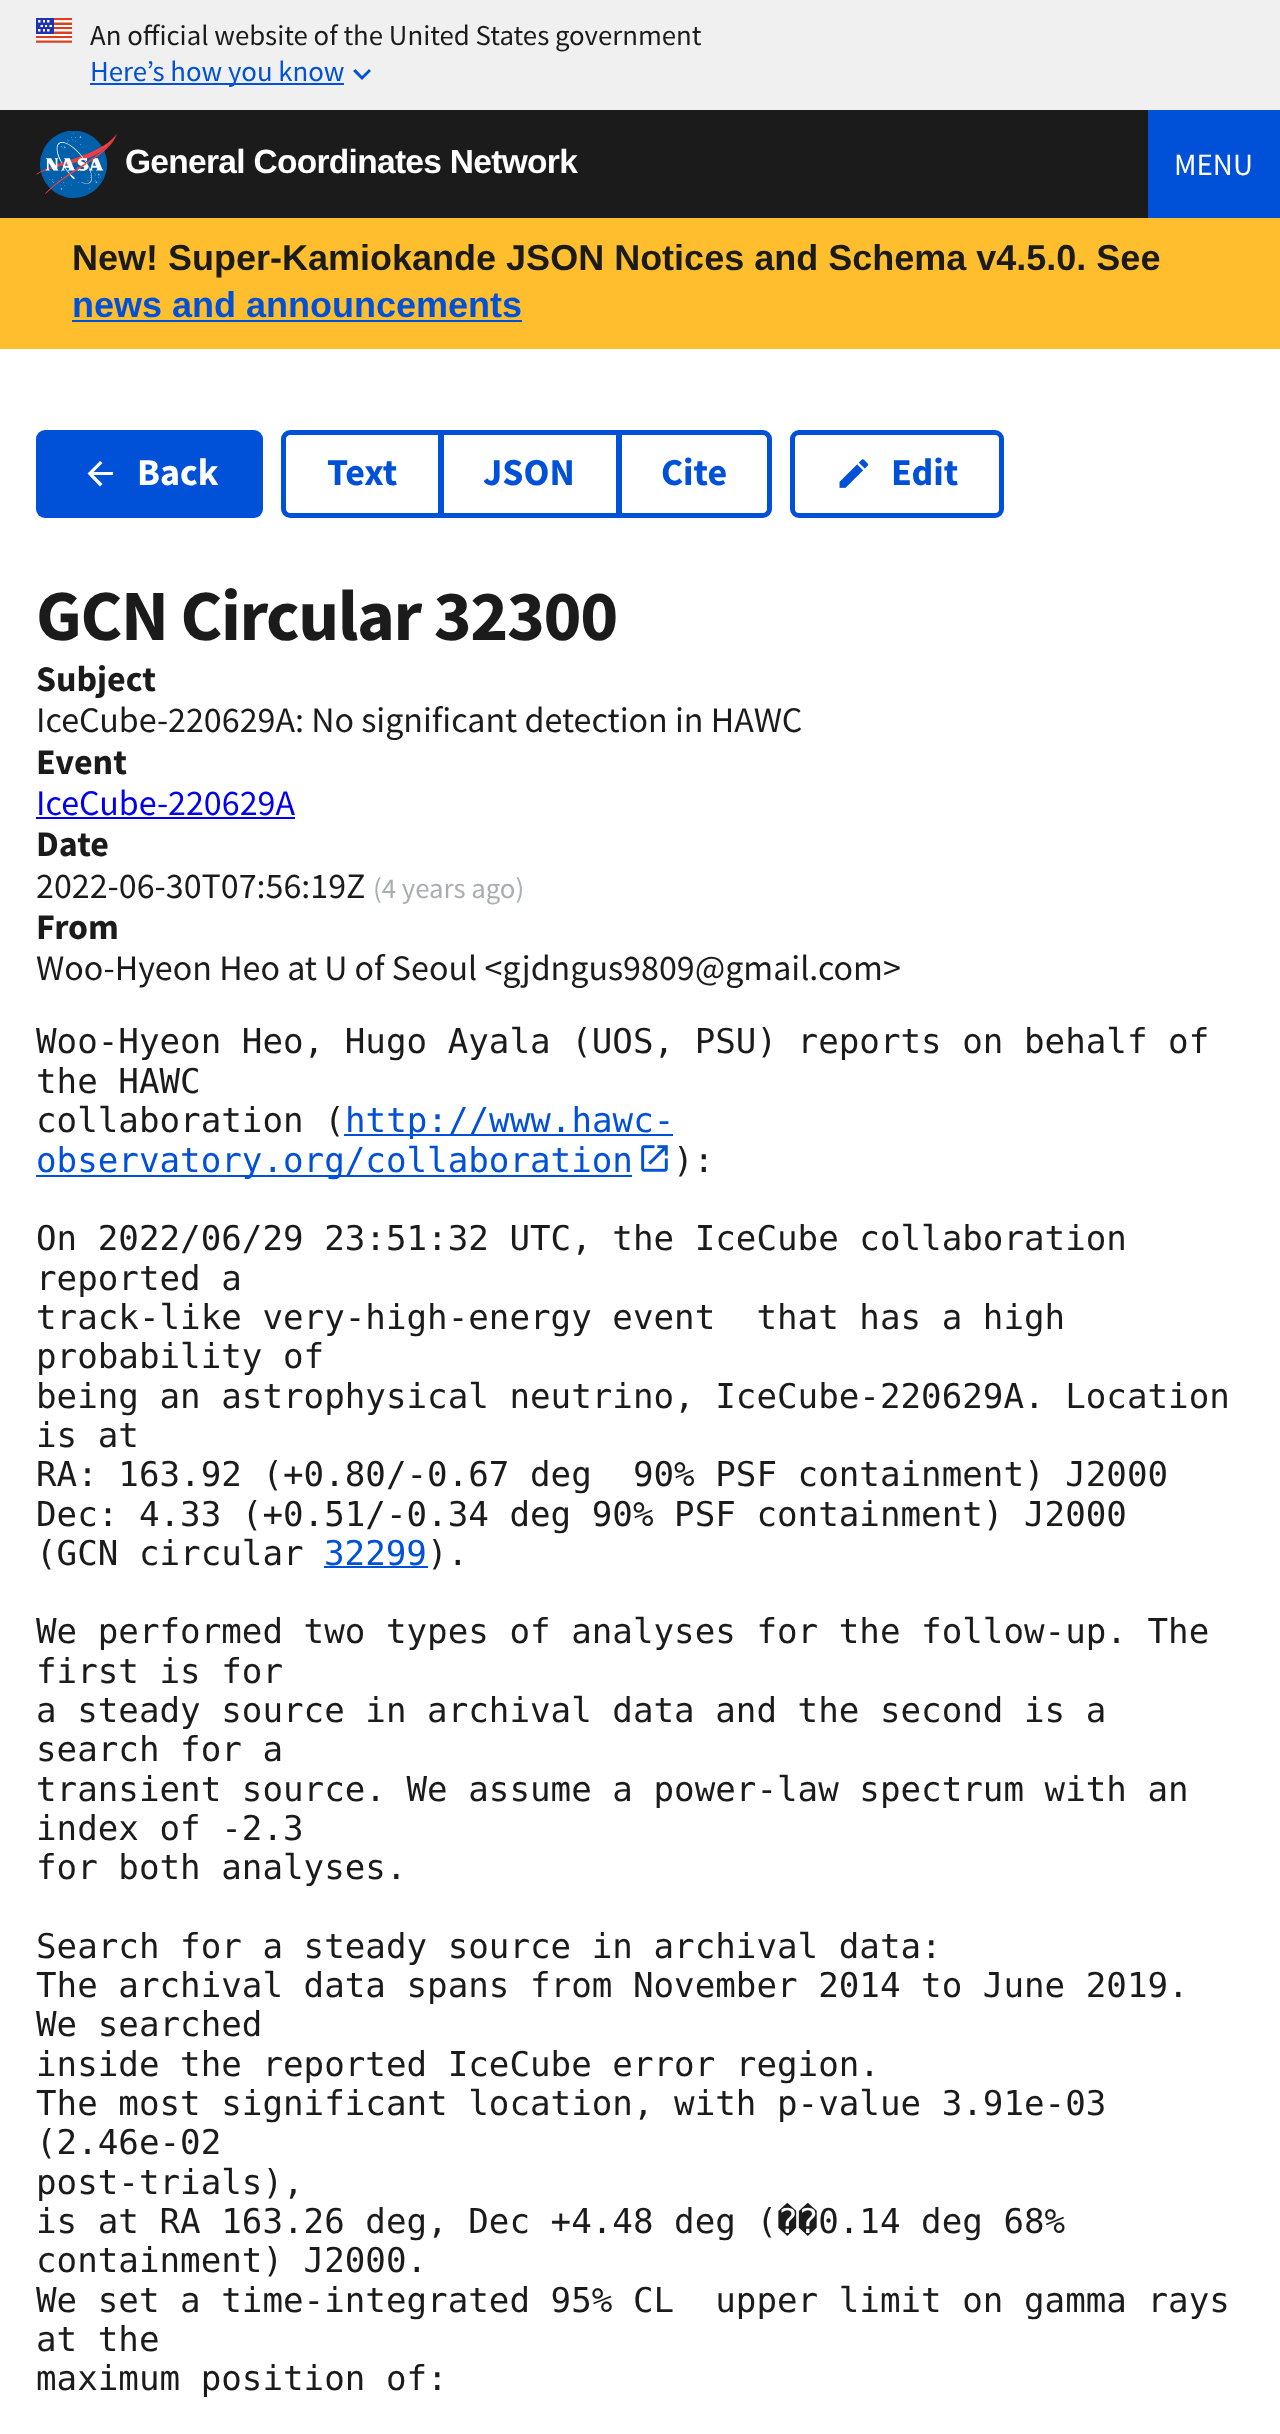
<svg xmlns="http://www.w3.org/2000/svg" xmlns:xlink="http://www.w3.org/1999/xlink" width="1280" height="2434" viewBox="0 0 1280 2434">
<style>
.cls-1{font:28.8px Source Sans Pro;fill:#1b1b1b}
.cls-2{font:28.8px Source Sans Pro;fill:#0050d8}
.cls-3{font:bold 33.5px Liberation Sans;letter-spacing:-0.7px;fill:#ffffff}
.cls-4{font:31px Source Sans Pro;fill:#ffffff}
.cls-5{font:bold 36px Liberation Sans;fill:#1b1b1b}
.cls-6{font:bold 36px Liberation Sans;fill:#0050d8}
.cls-7{font:bold 38px Source Sans Pro;fill:#ffffff}
.cls-8{font:bold 38px Source Sans Pro;fill:#0050d8}
.cls-9{font:bold 72px Source Sans Pro;letter-spacing:-1.4px;fill:#1b1b1b}
.cls-10{font:bold 36px Source Sans Pro;fill:#1b1b1b}
.cls-11{font:36px Source Sans Pro;fill:#1b1b1b}
.cls-12{font:36px Source Sans Pro;fill:#0000ee}
.cls-13{font:28.8px Source Sans Pro;fill:#a9aeb1}
.cls-14{font:34.2px DejaVu Sans Mono;fill:#1b1b1b}
.cls-15{font:34.2px DejaVu Sans Mono;fill:#0050d8}
</style>
<rect width="100%" height="100%" fill="#ffffff"/>
<rect fill="#f0f0f0" x="0" y="0" width="1280" height="110"/>
<image xlink:href="image0.png" x="36" y="18" width="36" height="25"/>
<rect fill="#0050d8" x="90" y="83" width="254" height="2"/>
<path fill="#0050d8" d="M369 69L362 76L355.5 69L353 71L362 80L371 71Z"/>
<rect fill="#1b1b1b" x="0" y="110" width="1148" height="108"/>
<image xlink:href="image1.png" x="36" y="131" width="81" height="67"/>
<rect fill="#0050d8" x="1148" y="110" width="132" height="108"/>
<rect fill="#ffbe2e" x="0" y="218" width="1280" height="131"/>
<rect fill="#0050d8" x="72" y="320" width="450" height="2"/>
<rect fill="#0050d8" x="36" y="430" width="227" height="88" rx="9"/>
<path fill="#ffffff" d="M113 472H93.5L102.5 463L100 461L87.5 473.5L100 486.5L102.5 484L93.5 475H113Z"/>
<path fill="none" stroke="#0050d8" stroke-width="5" d="M290 432.5H440.5V515.5H290C286.5 515.5 283.5 512.5 283.5 509V439C283.5 435.5 286.5 432.5 290 432.5Z"/>
<rect fill="none" stroke="#0050d8" stroke-width="5" x="441.5" y="432.5" width="177" height="83"/>
<path fill="none" stroke="#0050d8" stroke-width="5" d="M619.5 432.5H763C766.5 432.5 769.5 435.5 769.5 439V509C769.5 512.5 766.5 515.5 763 515.5H619.5Z"/>
<rect fill="none" stroke="#0050d8" stroke-width="5" x="792.5" y="432.5" width="209" height="83" rx="6.5"/>
<image xlink:href="image2.png" x="839" y="459" width="30" height="29"/>
<rect fill="#0000ee" x="36" y="817" width="259" height="2"/>
<rect fill="#0050d8" x="344" y="1134" width="329" height="2"/>
<rect fill="#0050d8" x="36" y="1175" width="596" height="2"/>
<image xlink:href="image3.png" x="641" y="1145" width="27" height="27"/>
<rect fill="#0050d8" x="324" y="1566" width="104" height="2"/>
<text class="cls-1" x="90" y="45">An official website of the United States government</text>
<text class="cls-2" x="90" y="81">Here’s how you know</text>
<text class="cls-3" x="125" y="173">General Coordinates Network</text>
<text class="cls-4" x="1174" y="175">MENU</text>
<text class="cls-5" x="72" y="270">New! Super-Kamiokande JSON Notices and Schema v4.5.0. See</text>
<text class="cls-6" x="72" y="317">news and announcements</text>
<text class="cls-7" x="137" y="485">Back</text>
<text class="cls-8" x="327" y="485">Text</text>
<text class="cls-8" x="483" y="485">JSON</text>
<text class="cls-8" x="661" y="485">Cite</text>
<text class="cls-8" x="891" y="485">Edit</text>
<text class="cls-9" x="36" y="640">GCN Circular 32300</text>
<text class="cls-10" x="36" y="691">Subject</text>
<text class="cls-11" x="36" y="732">IceCube-220629A: No significant detection in HAWC</text>
<text class="cls-10" x="36" y="774">Event</text>
<text class="cls-12" x="36" y="815">IceCube-220629A</text>
<text class="cls-10" x="36" y="856">Date</text>
<text class="cls-11" x="36" y="898">2022-06-30T07:56:19Z</text>
<text class="cls-13" x="373" y="898">(4 years ago)</text>
<text class="cls-10" x="36" y="939">From</text>
<text class="cls-11" x="36" y="980">Woo-Hyeon Heo at U of Seoul &lt;gjdngus9809@gmail.com&gt;</text>
<text class="cls-14"><tspan x="36" y="1053">Woo-Hyeon Heo, Hugo Ayala (UOS, PSU) reports on behalf of</tspan><tspan x="36" y="1093">the HAWC</tspan><tspan x="36" y="1132">collaboration (</tspan></text>
<text class="cls-15" x="345" y="1132">http://www.hawc-</text>
<text class="cls-15" x="36" y="1172">observatory.org/collaboration</text>
<text class="cls-14" x="673" y="1172">):</text>
<text class="cls-14" xml:space="preserve"><tspan x="36" y="1250">On 2022/06/29 23:51:32 UTC, the IceCube collaboration</tspan><tspan x="36" y="1290">reported a</tspan><tspan x="36" y="1329">track-like very-high-energy event  that has a high</tspan><tspan x="36" y="1368">probability of</tspan><tspan x="36" y="1408">being an astrophysical neutrino, IceCube-220629A. Location</tspan><tspan x="36" y="1447">is at</tspan><tspan x="36" y="1486">RA: 163.92 (+0.80/-0.67 deg  90% PSF containment) J2000</tspan><tspan x="36" y="1526">Dec: 4.33 (+0.51/-0.34 deg 90% PSF containment) J2000</tspan><tspan x="36" y="1565">(GCN circular</tspan></text>
<text class="cls-15" x="324" y="1565">32299</text>
<text class="cls-14" x="427" y="1565">).</text>
<text class="cls-14"><tspan x="36" y="1643">We performed two types of analyses for the follow-up. The</tspan><tspan x="36" y="1683">first is for</tspan><tspan x="36" y="1722">a steady source in archival data and the second is a</tspan><tspan x="36" y="1761">search for a</tspan><tspan x="36" y="1801">transient source. We assume a power-law spectrum with an</tspan><tspan x="36" y="1840">index of -2.3</tspan><tspan x="36" y="1879">for both analyses.</tspan></text>
<text class="cls-14" xml:space="preserve"><tspan x="36" y="1958">Search for a steady source in archival data:</tspan><tspan x="36" y="1997">The archival data spans from November 2014 to June 2019.</tspan><tspan x="36" y="2036">We searched</tspan><tspan x="36" y="2076">inside the reported IceCube error region.</tspan><tspan x="36" y="2115">The most significant location, with p-value 3.91e-03</tspan><tspan x="36" y="2154">(2.46e-02</tspan><tspan x="36" y="2194">post-trials),</tspan><tspan x="36" y="2233">is at RA 163.26 deg, Dec +4.48 deg (��0.14 deg 68%</tspan><tspan x="36" y="2272">containment) J2000.</tspan><tspan x="36" y="2312">We set a time-integrated 95% CL  upper limit on gamma rays</tspan><tspan x="36" y="2351">at the</tspan><tspan x="36" y="2390">maximum position of:</tspan></text>
</svg>
